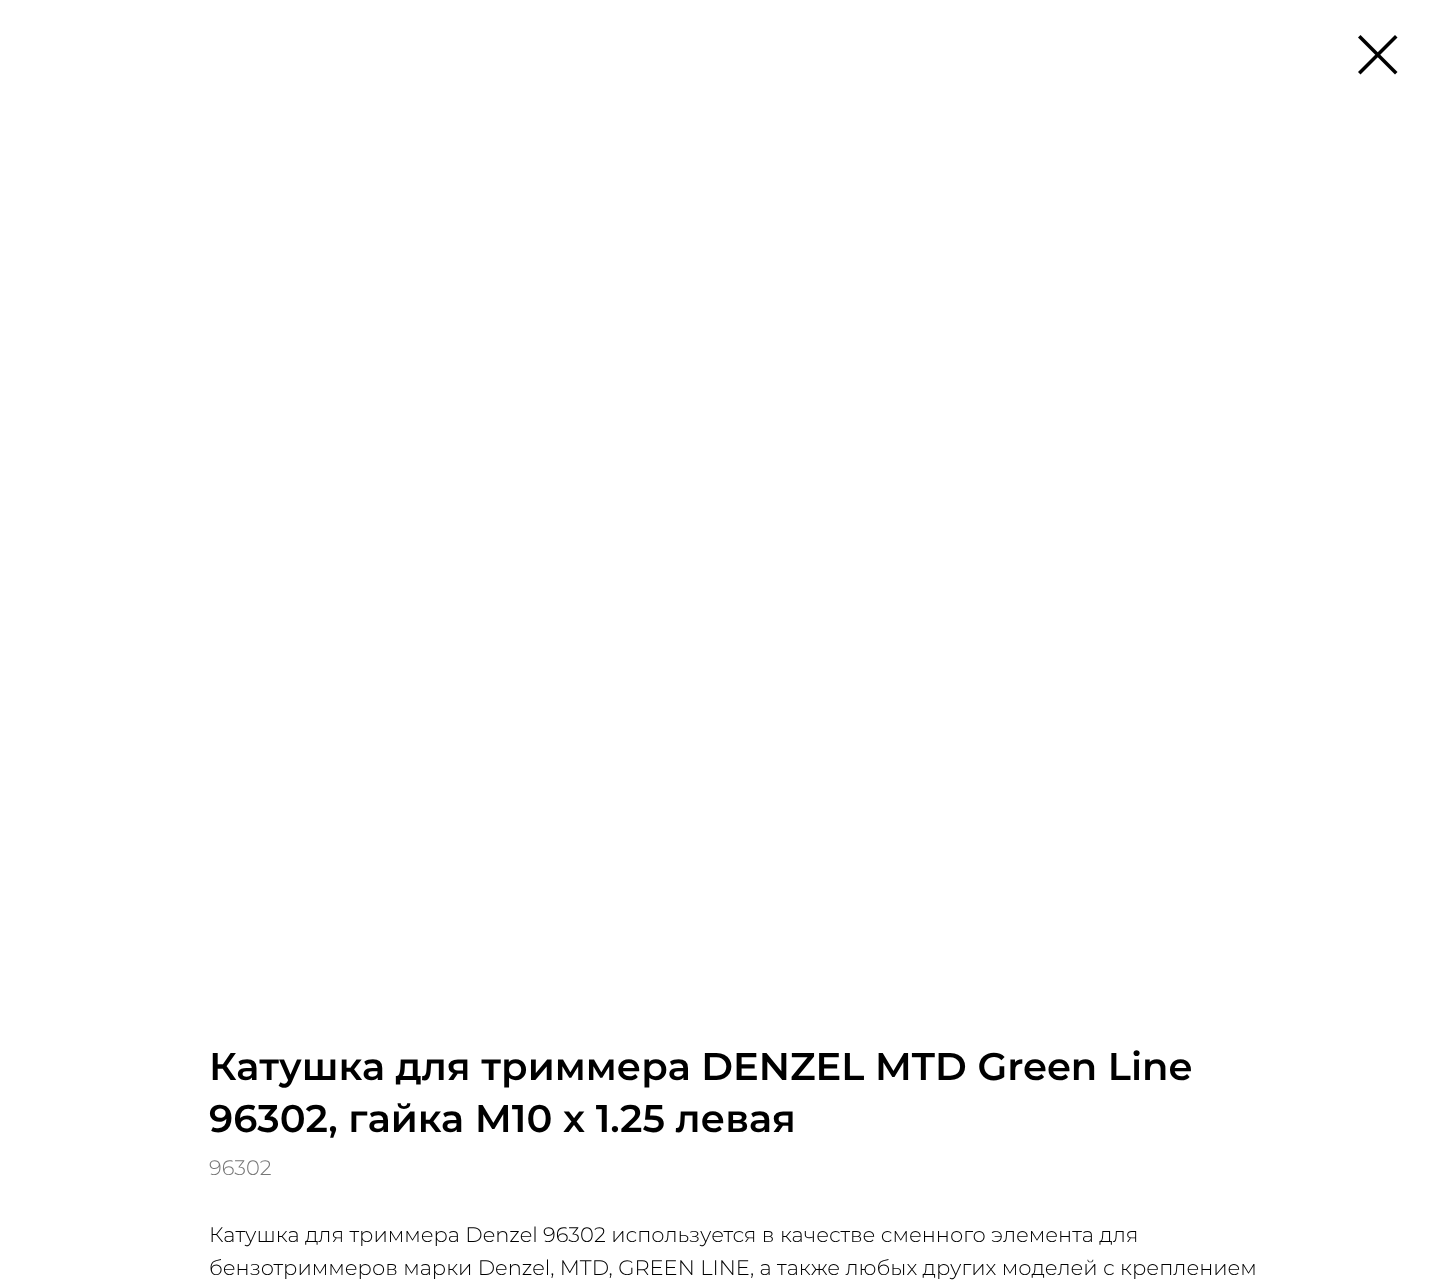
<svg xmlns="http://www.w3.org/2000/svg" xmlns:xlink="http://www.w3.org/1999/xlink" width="1432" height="1280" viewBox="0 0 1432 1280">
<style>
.cls-1{font:600 38.5px Montserrat;fill:#000000}
.cls-2{font:300 21px Montserrat;fill:#777777}
.cls-3{font:300 21px Montserrat;fill:#000000}
</style>
<rect width="100%" height="100%" fill="#ffffff"/>
<path fill="#000000" fill-rule="evenodd" d="M1358 37.5L1360.5 35L1397.5 72L1395 74.5Z"/>
<path fill="#000000" fill-rule="evenodd" d="M1395 35L1397.5 37.5L1360.5 74.5L1358 72Z"/>
<text class="cls-1"><tspan x="209" y="1080">Катушка для триммера DENZEL MTD Green Line</tspan><tspan x="209" y="1132">96302, гайка М10 x 1.25 левая</tspan></text>
<text class="cls-2" x="209" y="1175">96302</text>
<text class="cls-3"><tspan x="209" y="1242">Катушка для триммера Denzel 96302 используется в качестве сменного элемента для</tspan><tspan x="209" y="1275">бензотриммеров марки Denzel, MTD, GREEN LINE, а также любых других моделей с креплением</tspan></text>
</svg>
